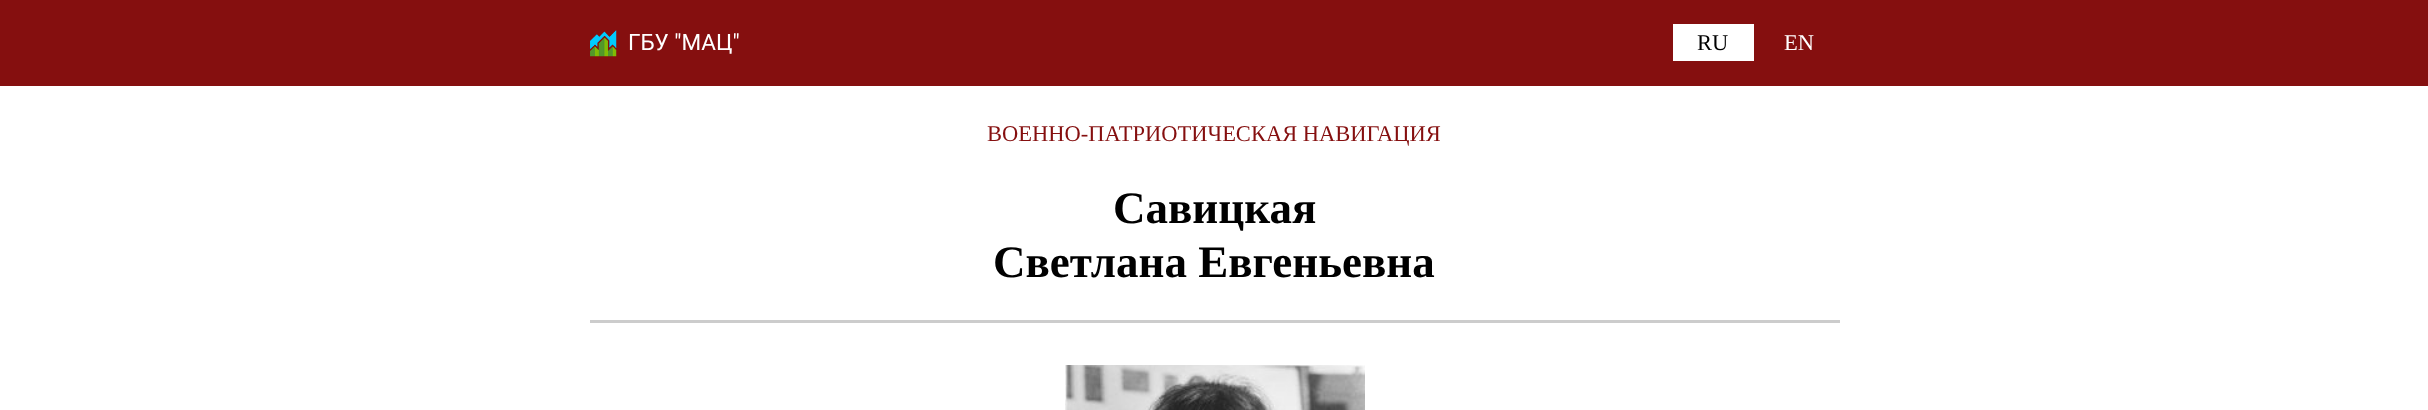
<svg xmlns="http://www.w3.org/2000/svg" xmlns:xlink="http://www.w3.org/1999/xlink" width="2428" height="410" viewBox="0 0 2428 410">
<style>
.cls-1{font:22.5px Roboto;fill:#ffffff}
.cls-2{font:22.5px Liberation Serif;fill:#000000}
.cls-3{font:22.5px Liberation Serif;fill:#ffffff}
.cls-4{font:22.5px Liberation Serif;fill:#850f0f}
.cls-5{font:bold 45px Liberation Serif;fill:#000000}
</style>
<rect width="100%" height="100%" fill="#ffffff"/>
<rect fill="#850f0f" x="0" y="0" width="2428" height="86"/>
<image xlink:href="image0.png" x="590" y="30" width="27" height="27"/>
<rect fill="#ffffff" x="1673" y="24" width="81" height="37"/>
<rect fill="#cccccc" x="590" y="320" width="1250" height="3"/>
<image xlink:href="image1.png" x="1065" y="365" width="300" height="45"/>
<text class="cls-1" x="628" y="50">ГБУ "МАЦ"</text>
<text class="cls-2" x="1697" y="50">RU</text>
<text class="cls-3" x="1784" y="50">EN</text>
<text class="cls-4" x="987" y="141">ВОЕННО-ПАТРИОТИЧЕСКАЯ НАВИГАЦИЯ</text>
<text class="cls-5" x="1113" y="223">Савицкая</text>
<text class="cls-5" x="993" y="277">Светлана Евгеньевна</text>
</svg>
